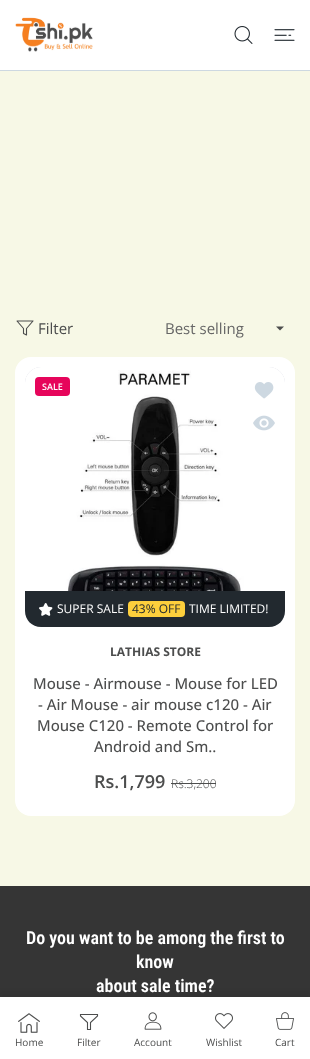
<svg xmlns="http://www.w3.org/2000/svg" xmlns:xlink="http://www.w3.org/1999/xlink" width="310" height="1059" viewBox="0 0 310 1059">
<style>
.cls-1{font:15px Open Sans;fill:#4c4d4d}
.cls-2{font:15px Open Sans;fill:#666666}
.cls-3{font:600 9px Open Sans;fill:#ffffff}
.cls-4{font:12px Open Sans;fill:#ffffff}
.cls-5{font:12px Open Sans;fill:#22292f}
.cls-6{font:bold 12px Open Sans;fill:#4c4d4d}
.cls-7{font:500 15px Open Sans;fill:#4c4d4d}
.cls-8{font:600 18px Open Sans;fill:#4c4d4d}
.cls-9{font:300 12px Open Sans;fill:#4c4d4d}
.cls-10{font:600 18px Roboto Condensed;fill:#ffffff}
.cls-11{font:10px Open Sans;fill:#4c4d4d}
</style>
<rect width="100%" height="100%" fill="#f7f8e6"/>
<rect fill="#cdd8e1" x="0" y="70" width="310" height="1"/>
<rect fill="#ffffff" x="0" y="0" width="310" height="70"/>
<image xlink:href="image0.png" x="15" y="17" width="78" height="35"/>
<image xlink:href="image1.png" x="234" y="26" width="19" height="18"/>
<image xlink:href="image2.png" x="274" y="29" width="21" height="12"/>
<path fill="none" stroke="#4c4d4d" stroke-width="1.1" stroke-linecap="round" stroke-linejoin="round" d="M33 321H17L23.5 328.5V333.5L26.5 335V328.5Z"/>
<path fill="#4c4d4d" d="M276 326.5L280 330.5L284 326.5Z"/>
<rect fill="#ffffff" x="15" y="357" width="280" height="459" rx="16"/>
<rect fill="#e1e2ea" x="25" y="367" width="260" height="260" rx="16"/>
<image xlink:href="image3.png" x="25" y="367" width="260" height="260"/>
<rect fill="#e6055b" x="35" y="377" width="35" height="19" rx="4"/>
<image xlink:href="image4.png" x="254" y="382" width="20" height="17"/>
<image xlink:href="image5.png" x="253" y="415" width="22" height="16"/>
<path fill="#22292f" d="M25 591H285V611C285 620 278 627 269 627H41C32 627 25 620 25 611Z"/>
<image xlink:href="image6.png" x="39" y="603" width="14" height="13"/>
<rect fill="#fdcf3c" x="128" y="601" width="57" height="16" rx="4"/>
<rect fill="#4c4d4d" x="171" y="783" width="45" height="1"/>
<rect fill="#353535" x="0" y="886" width="310" height="111"/>
<rect fill="#000000" fill-opacity="0.05" filter="blur(2.5px)" x="0" y="992" width="310" height="62"/>
<rect fill="#ffffff" x="0" y="997" width="310" height="62"/>
<image xlink:href="image7.png" x="18" y="1013" width="22" height="20"/>
<path fill="none" stroke="#4c4d4d" stroke-width="1.1" d="M80.5 1014.5V1016L87.5 1022.5V1029.5H90.5V1022.5L97.5 1016V1014.5Z"/>
<image xlink:href="image8.png" x="144" y="1012" width="18" height="18"/>
<image xlink:href="image9.png" x="215" y="1013" width="18" height="16"/>
<image xlink:href="image10.png" x="276" y="1012" width="18" height="18"/>
<text class="cls-1" x="38" y="334">Filter</text>
<text class="cls-2" x="165" y="334">Best selling</text>
<text class="cls-3" x="42" y="390">SALE</text>
<text class="cls-4" x="57" y="613">SUPER SALE</text>
<text class="cls-5" x="132" y="613">43% OFF</text>
<text class="cls-4" x="189" y="613">TIME LIMITED!</text>
<text class="cls-6" x="110" y="656">LATHIAS STORE</text>
<text class="cls-7" x="33" y="689">Mouse - Airmouse - Mouse for LED</text>
<text class="cls-7" x="38" y="710">- Air Mouse - air mouse c120 - Air</text>
<text class="cls-7" x="37" y="731">Mouse C120 - Remote Control for</text>
<text class="cls-7" x="94" y="752">Android and Sm..</text>
<text class="cls-8" x="94" y="788">Rs.1,799</text>
<text class="cls-9" x="171" y="788">Rs.3,200</text>
<text class="cls-10" x="26" y="944">Do you want to be among the first to</text>
<text class="cls-10" x="136" y="968">know</text>
<text class="cls-10" x="96" y="992">about sale time?</text>
<text class="cls-11" x="15" y="1046">Home</text>
<text class="cls-11" x="77" y="1046">Filter</text>
<text class="cls-11" x="134" y="1046">Account</text>
<text class="cls-11" x="206" y="1046">Wishlist</text>
<text class="cls-11" x="275" y="1046">Cart</text>
</svg>
